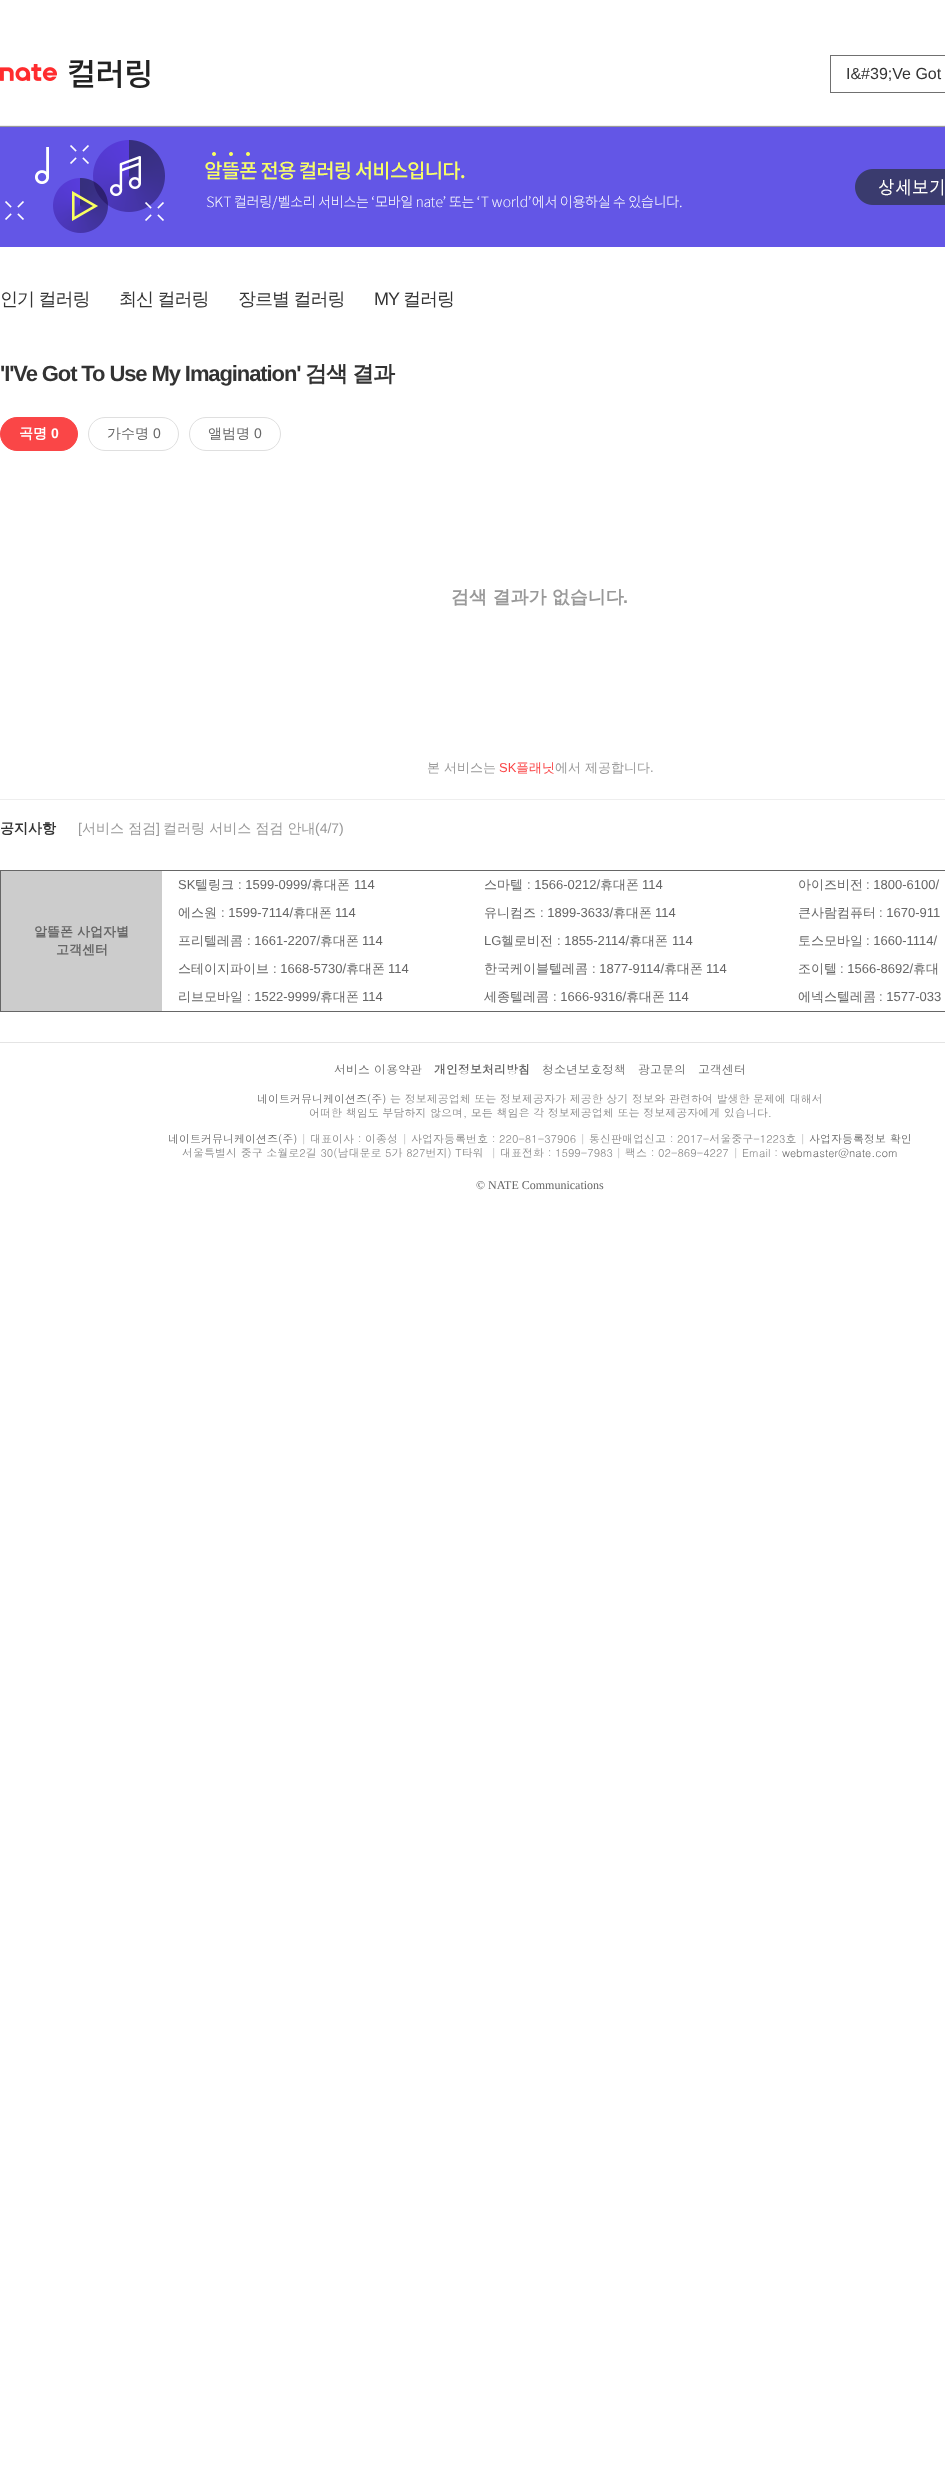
<svg xmlns="http://www.w3.org/2000/svg" xmlns:xlink="http://www.w3.org/1999/xlink" width="945" height="2488" viewBox="0 0 945 2488">
<style>
.cls-1{font:16px Liberation Sans;fill:#333333}
.cls-2{font:500 18px WenQuanYi Zen Hei;letter-spacing:-1px;fill:#333333}
.cls-3{font:18px Liberation Sans;letter-spacing:-1px;fill:#333333}
.cls-4{font:bold 22px Liberation Sans;letter-spacing:-1.1px;fill:#333333}
.cls-5{font:bold 22px WenQuanYi Zen Hei;letter-spacing:-1.1px;fill:#333333}
.cls-6{font:bold 14px WenQuanYi Zen Hei;fill:#ffffff}
.cls-7{font:bold 14px Liberation Sans;fill:#ffffff}
.cls-8{font:500 14px WenQuanYi Zen Hei;fill:#666666}
.cls-9{font:14px Liberation Sans;fill:#666666}
.cls-10{font:bold 18px WenQuanYi Zen Hei;fill:#999999}
.cls-11{font:bold 18px Liberation Sans;fill:#999999}
.cls-12{font:500 13px WenQuanYi Zen Hei;fill:#999999}
.cls-13{font:13px Liberation Sans;fill:#fa4647}
.cls-14{font:500 13px WenQuanYi Zen Hei;fill:#fa4647}
.cls-15{font:13px Liberation Sans;fill:#999999}
.cls-16{font:bold 14px WenQuanYi Zen Hei;fill:#333333}
.cls-17{font:14px Liberation Sans;fill:#999999}
.cls-18{font:500 14px WenQuanYi Zen Hei;fill:#999999}
.cls-19{font:13px Liberation Sans;fill:#666666}
.cls-20{font:500 13px WenQuanYi Zen Hei;fill:#666666}
.cls-21{font:bold 13px WenQuanYi Zen Hei;fill:#666666}
.cls-22{font:12px Dotum;fill:#666666}
.cls-23{font:bold 12px Dotum;fill:#666666}
.cls-24{font:11px Dotum;fill:#666666}
.cls-25{font:11px Dotum;fill:#888888}
.cls-26{font:11px Dotum;fill:#bbbbbb}
.cls-27{font:12px Liberation Serif;fill:#666666}
</style>
<rect width="100%" height="100%" fill="#ffffff"/>
<rect fill="#eeeeee" x="0" y="125" width="945" height="1"/>
<image xlink:href="image0.png" x="0" y="64" width="57" height="17"/>
<image xlink:href="image1.png" x="69" y="60" width="81" height="28"/>
<rect fill="none" stroke="#707070" x="830.5" y="55.5" width="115" height="37"/>
<rect fill="#999999" x="0" y="126" width="945" height="1"/>
<rect fill="#6356e6" x="0" y="127" width="945" height="120"/>
<image xlink:href="image2.png" x="5" y="140" width="940" height="93"/>
<rect fill="#fa4647" stroke="#fa4647" x="0.5" y="417.5" width="77" height="33" rx="16.5"/>
<rect fill="none" stroke="#dfdfdf" x="88.5" y="417.5" width="90" height="33" rx="16.5"/>
<rect fill="none" stroke="#dfdfdf" x="189.5" y="417.5" width="91" height="33" rx="16.5"/>
<rect fill="#eeeeee" x="0" y="799" width="945" height="1"/>
<rect fill="#666666" x="0" y="870" width="945" height="1"/>
<rect fill="#666666" x="0" y="1011" width="945" height="1"/>
<rect fill="#666666" x="0" y="870" width="1" height="142"/>
<rect fill="#cccccc" x="1" y="871" width="161" height="140"/>
<rect fill="#e4e4e4" x="0" y="1042" width="945" height="1"/>
<text class="cls-1" x="846" y="79">I&amp;#39;Ve Got</text>
<text class="cls-2" x="0" y="305">인기 컬러링</text>
<text class="cls-2" x="119" y="305">최신 컬러링</text>
<text class="cls-2" x="238" y="305">장르별 컬러링</text>
<text class="cls-3" x="374" y="305">MY</text>
<text class="cls-2" x="403" y="305">컬러링</text>
<text class="cls-4" x="0" y="381">'I'Ve Got To Use My Imagination'</text>
<text class="cls-5" x="305" y="381">검색</text>
<text class="cls-5" x="352" y="381">결과</text>
<text class="cls-6" x="19" y="438">곡명</text>
<text class="cls-7" x="51" y="438">0</text>
<text class="cls-8" x="107" y="438">가수명</text>
<text class="cls-9" x="153" y="438">0</text>
<text class="cls-8" x="208" y="438">앨범명</text>
<text class="cls-9" x="254" y="438">0</text>
<text class="cls-10" x="451" y="603">검색 결과가 없습니다</text>
<text class="cls-11" x="623" y="603">.</text>
<text class="cls-12" x="427" y="772">본 서비스는</text>
<text class="cls-13" x="499" y="772">SK</text>
<text class="cls-14" x="516" y="772">플래닛</text>
<text class="cls-12" x="555" y="772">에서 제공합니다</text>
<text class="cls-15" x="650" y="772">.</text>
<text class="cls-16" x="0" y="833">공지사항</text>
<text class="cls-17" x="78" y="833">[</text>
<text class="cls-18" x="82" y="833">서비스 점검</text>
<text class="cls-17" x="156" y="833">]</text>
<text class="cls-18" x="163" y="833">컬러링 서비스 점검 안내</text>
<text class="cls-17" x="315" y="833">(4/7)</text>
<text class="cls-19" x="178" y="889">SK</text>
<text class="cls-20" x="195" y="889">텔링크</text>
<text class="cls-19" x="238" y="889">: 1599-0999/</text>
<text class="cls-20" x="311" y="889">휴대폰</text>
<text class="cls-19" x="354" y="889">114</text>
<text class="cls-20" x="484" y="889">스마텔</text>
<text class="cls-19" x="527" y="889">: 1566-0212/</text>
<text class="cls-20" x="600" y="889">휴대폰</text>
<text class="cls-19" x="642" y="889">114</text>
<text class="cls-20" x="798" y="889">아이즈비전</text>
<text class="cls-19" x="866" y="889">: 1800-6100/</text>
<text class="cls-21" x="34" y="936">알뜰폰 사업자별</text>
<text class="cls-21" x="56" y="954">고객센터</text>
<text class="cls-20" x="178" y="917">에스원</text>
<text class="cls-19" x="221" y="917">: 1599-7114/</text>
<text class="cls-20" x="293" y="917">휴대폰</text>
<text class="cls-19" x="335" y="917">114</text>
<text class="cls-20" x="484" y="917">유니컴즈</text>
<text class="cls-19" x="540" y="917">: 1899-3633/</text>
<text class="cls-20" x="613" y="917">휴대폰</text>
<text class="cls-19" x="655" y="917">114</text>
<text class="cls-20" x="798" y="917">큰사람컴퓨터</text>
<text class="cls-19" x="879" y="917">: 1670-911</text>
<text class="cls-20" x="178" y="945">프리텔레콤</text>
<text class="cls-19" x="247" y="945">: 1661-2207/</text>
<text class="cls-20" x="320" y="945">휴대폰</text>
<text class="cls-19" x="362" y="945">114</text>
<text class="cls-19" x="484" y="945">LG</text>
<text class="cls-20" x="501" y="945">헬로비전</text>
<text class="cls-19" x="557" y="945">: 1855-2114/</text>
<text class="cls-20" x="629" y="945">휴대폰</text>
<text class="cls-19" x="672" y="945">114</text>
<text class="cls-20" x="798" y="945">토스모바일</text>
<text class="cls-19" x="866" y="945">: 1660-1114/</text>
<text class="cls-20" x="178" y="973">스테이지파이브</text>
<text class="cls-19" x="273" y="973">: 1668-5730/</text>
<text class="cls-20" x="346" y="973">휴대폰</text>
<text class="cls-19" x="388" y="973">114</text>
<text class="cls-20" x="484" y="973">한국케이블텔레콤</text>
<text class="cls-19" x="592" y="973">: 1877-9114/</text>
<text class="cls-20" x="664" y="973">휴대폰</text>
<text class="cls-19" x="706" y="973">114</text>
<text class="cls-20" x="798" y="973">조이텔</text>
<text class="cls-19" x="840" y="973">: 1566-8692/</text>
<text class="cls-20" x="913" y="973">휴대</text>
<text class="cls-20" x="178" y="1001">리브모바일</text>
<text class="cls-19" x="247" y="1001">: 1522-9999/</text>
<text class="cls-20" x="320" y="1001">휴대폰</text>
<text class="cls-19" x="362" y="1001">114</text>
<text class="cls-20" x="484" y="1001">세종텔레콤</text>
<text class="cls-19" x="553" y="1001">: 1666-9316/</text>
<text class="cls-20" x="626" y="1001">휴대폰</text>
<text class="cls-19" x="668" y="1001">114</text>
<text class="cls-20" x="798" y="1001">에넥스텔레콤</text>
<text class="cls-19" x="879" y="1001">: 1577-033</text>
<text class="cls-22" x="334" y="1074">서비스 이용약관</text>
<text class="cls-23" x="434" y="1074">개인정보처리방침</text>
<text class="cls-22" x="542" y="1074">청소년보호정책</text>
<text class="cls-22" x="638" y="1074">광고문의</text>
<text class="cls-22" x="698" y="1074">고객센터</text>
<text class="cls-24" x="257" y="1103">네이트커뮤니케이션즈(주)</text>
<text class="cls-25" x="390" y="1103">는 정보제공업체 또는 정보제공자가 제공한 상기 정보와 관련하여 발생한 문제에 대해서</text>
<text class="cls-25" x="309" y="1117">어떠한 책임도 부담하지 않으며, 모든 책임은 각 정보제공업체 또는 정보제공자에게 있습니다.</text>
<text class="cls-24" x="168" y="1143">네이트커뮤니케이션즈(주)</text>
<text class="cls-26" x="301" y="1143">|</text>
<text class="cls-25" x="310" y="1143">대표이사 : 이종성</text>
<text class="cls-26" x="402" y="1143">|</text>
<text class="cls-25" x="411" y="1143">사업자등록번호 : 220-81-37906</text>
<text class="cls-26" x="580" y="1143">|</text>
<text class="cls-25" x="589" y="1143">통신판매업신고 : 2017-서울중구-1223호</text>
<text class="cls-26" x="800" y="1143">|</text>
<text class="cls-24" x="809" y="1143">사업자등록정보 확인</text>
<text class="cls-25" x="182" y="1157">서울특별시 중구 소월로2길 30(남대문로 5가 827번지) T타워</text>
<text class="cls-26" x="491" y="1157">|</text>
<text class="cls-25" x="500" y="1157">대표전화 : 1599-7983</text>
<text class="cls-26" x="616" y="1157">|</text>
<text class="cls-25" x="625" y="1157">팩스 : 02-869-4227</text>
<text class="cls-26" x="733" y="1157">|</text>
<text class="cls-25" x="742" y="1157">Email :</text>
<text class="cls-24" x="782" y="1157">webmaster@nate.com</text>
<text class="cls-27" x="476" y="1189">© NATE Communications</text>
</svg>
